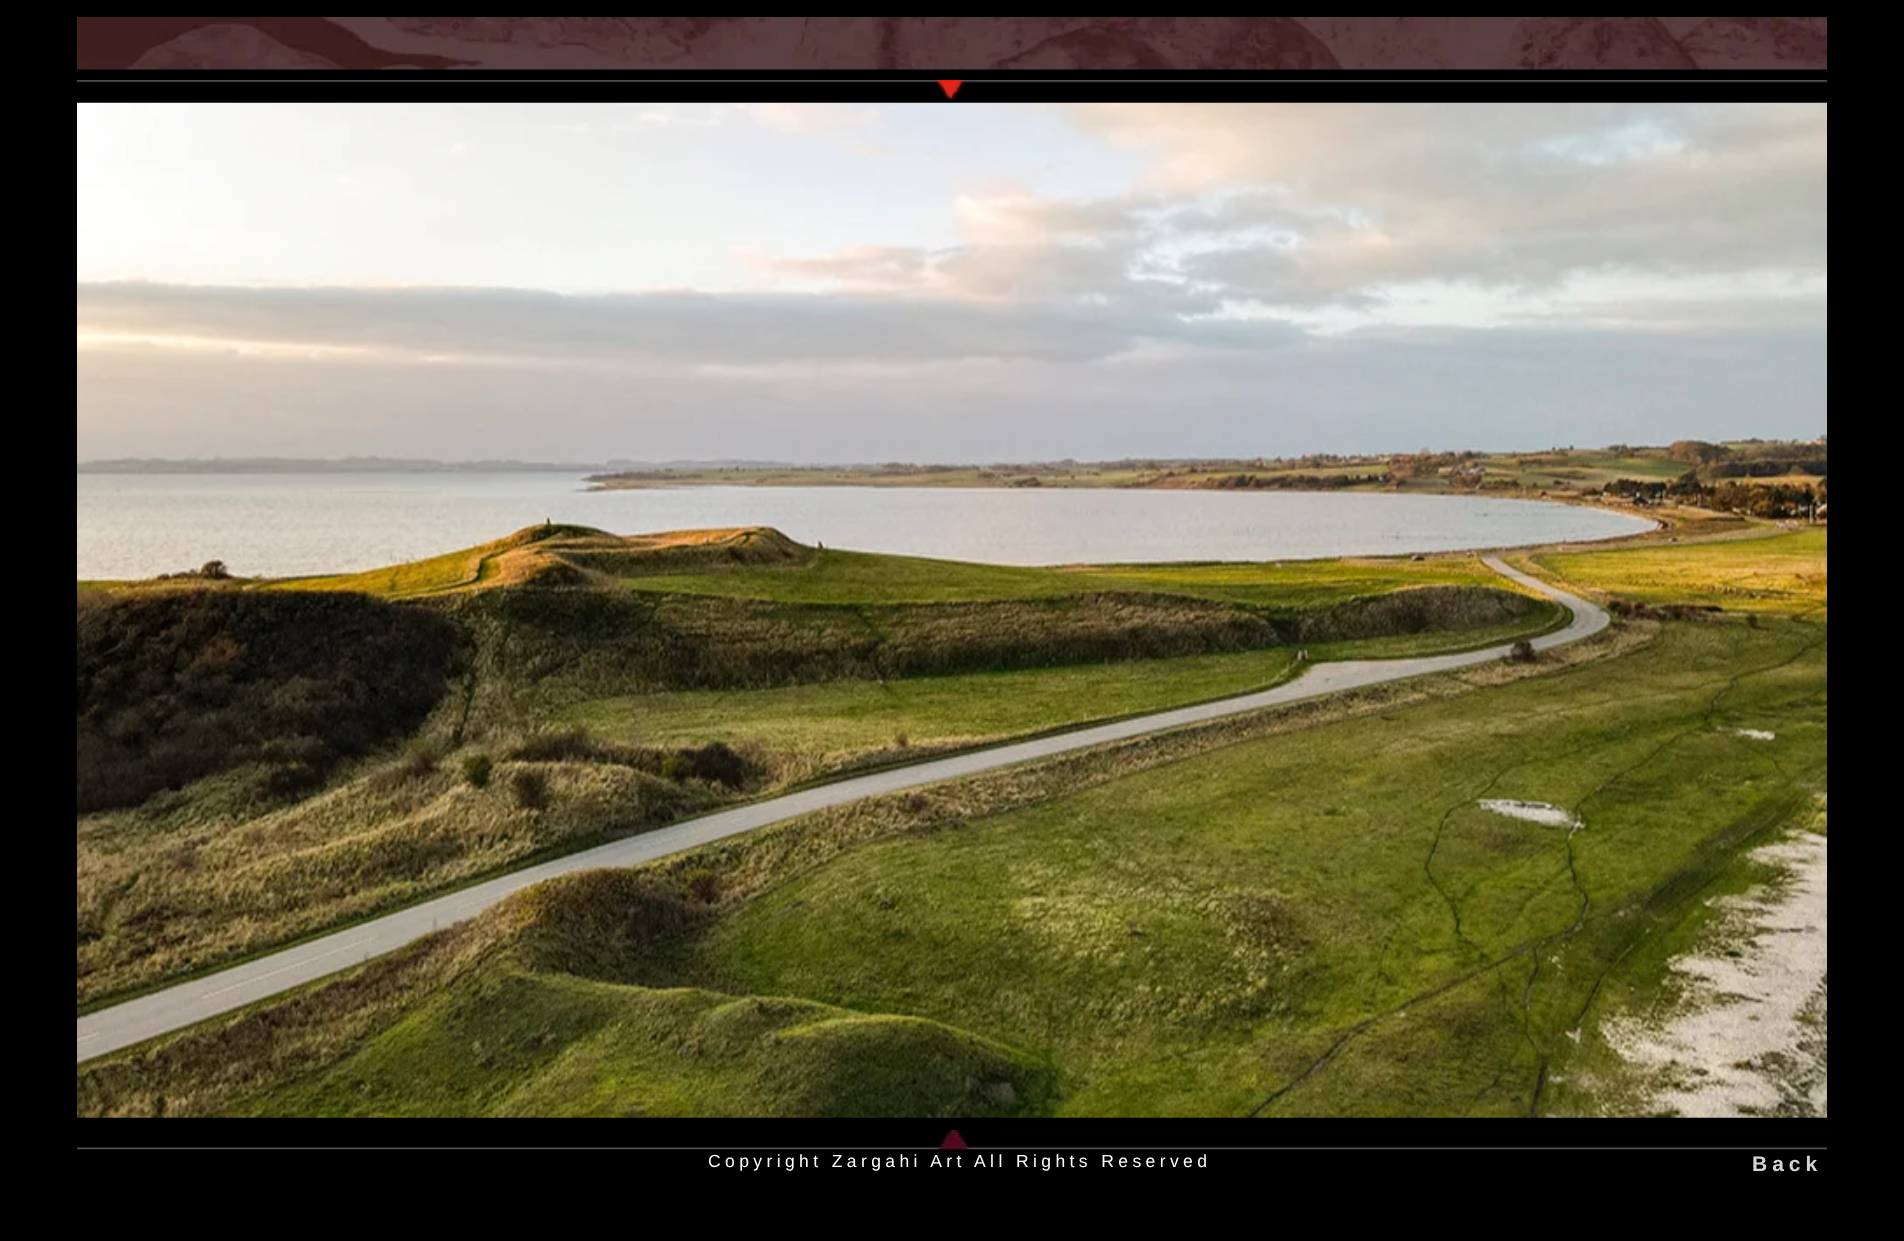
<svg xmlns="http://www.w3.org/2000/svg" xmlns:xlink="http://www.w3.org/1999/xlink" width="1904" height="1241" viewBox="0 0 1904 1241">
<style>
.cls-1{font:17.5px Liberation Sans;letter-spacing:4.4px;fill:#fffefe}
.cls-2{font:bold 21px Liberation Sans;letter-spacing:5px;fill:#d4d4d4}
</style>
<rect width="100%" height="100%" fill="#000000"/>
<image xlink:href="image0.png" x="77" y="17" width="1750" height="53"/>
<image xlink:href="image1.png" x="77" y="80" width="1750" height="20"/>
<image xlink:href="image2.png" x="77" y="102" width="1750" height="1016"/>
<image xlink:href="image3.png" x="77" y="1130" width="1750" height="20"/>
<text class="cls-1" x="708" y="1167">Copyright Zargahi Art All Rights Reserved</text>
<text class="cls-2" x="1752" y="1171">Back</text>
</svg>
